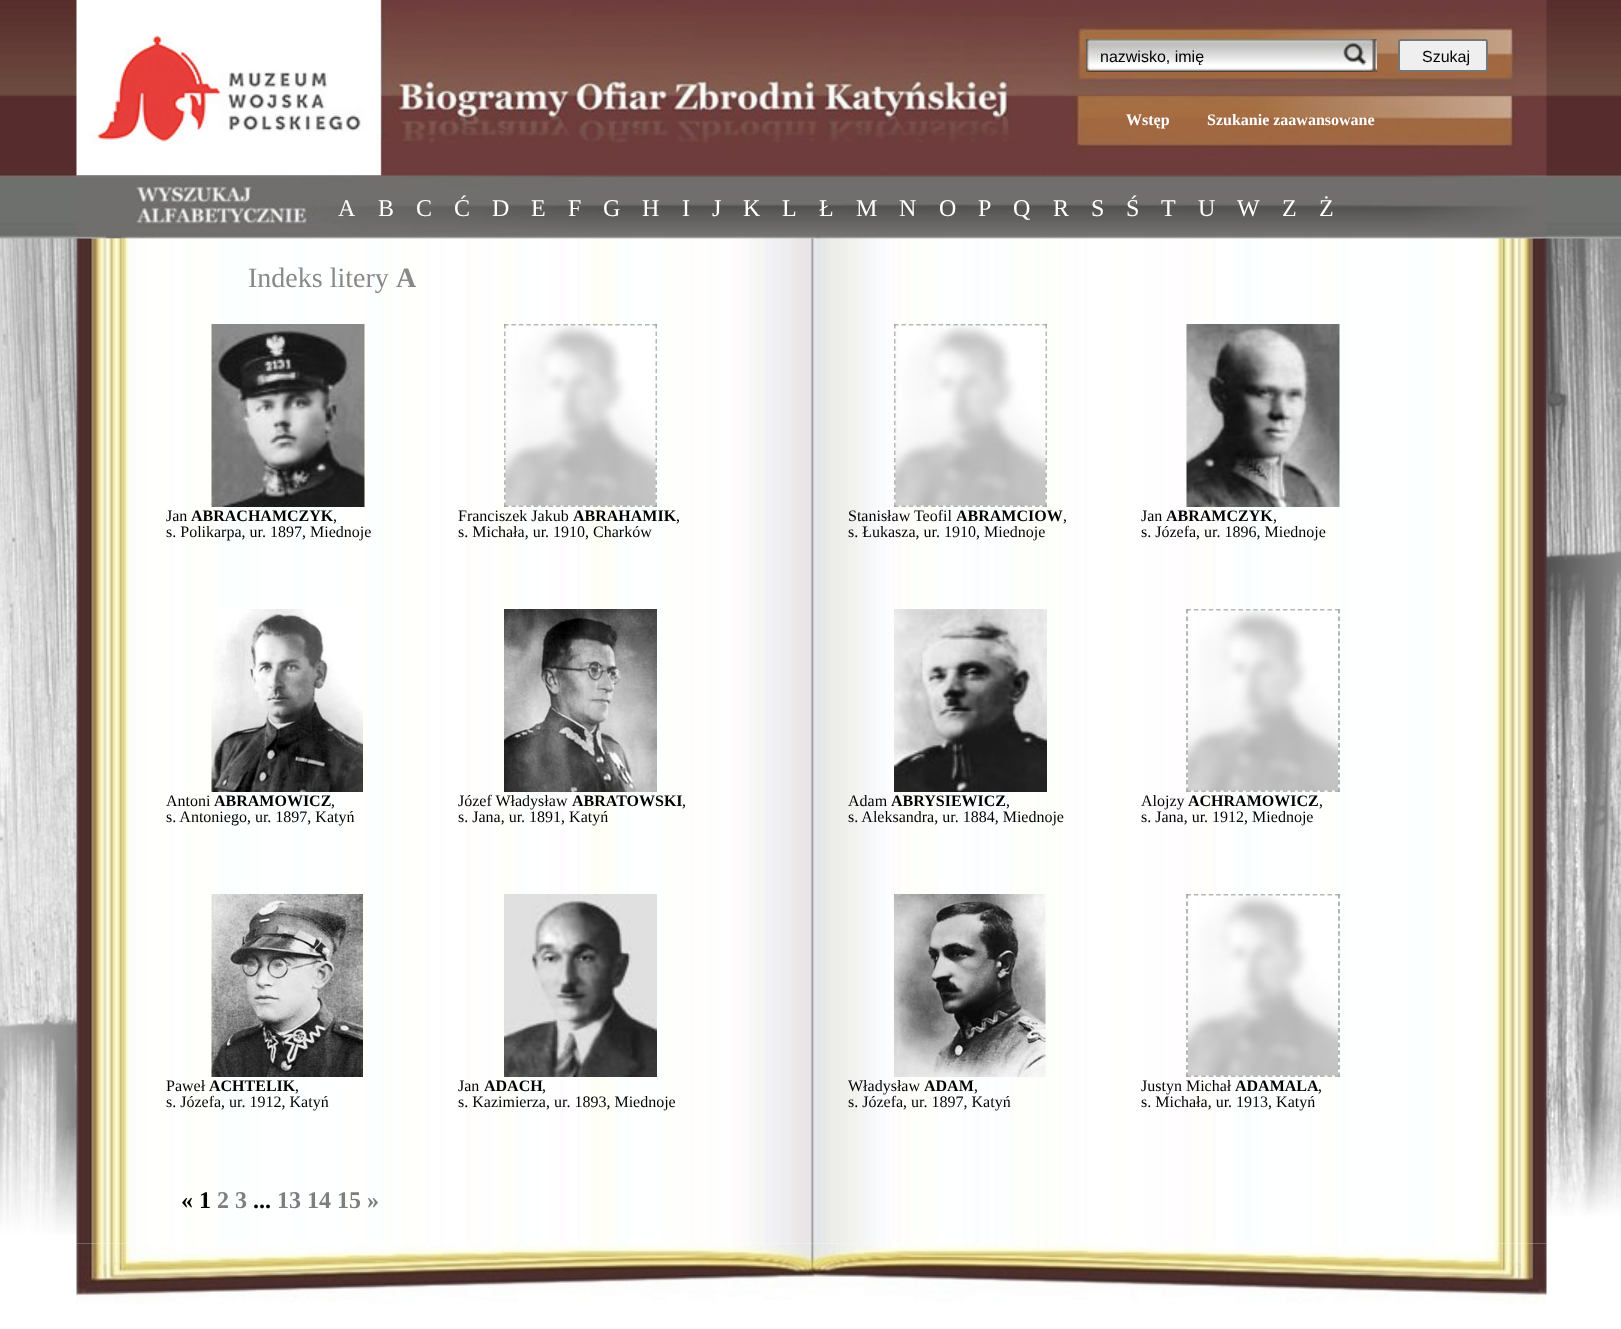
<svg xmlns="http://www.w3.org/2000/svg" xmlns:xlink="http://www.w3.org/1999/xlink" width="1621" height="1329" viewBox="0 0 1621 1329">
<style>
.cls-1{font:16px Liberation Sans;fill:#000000}
.cls-2{font:bold 16px Liberation Serif;fill:#ffffff}
.cls-3{font:24px Liberation Serif;fill:#ffffff}
.cls-4{font:28px Liberation Serif;fill:#898989}
.cls-5{font:bold 28px Liberation Serif;fill:#898989}
.cls-6{font:16px Liberation Serif;fill:#000000}
.cls-7{font:bold 16px Liberation Serif;fill:#000000}
.cls-8{font:bold 24px Liberation Serif;fill:#000000}
.cls-9{font:bold 24px Liberation Serif;fill:#7e7e7e}
</style>
<defs>
<clipPath id="clip1"><rect x="1101" y="47" width="273" height="18"/></clipPath>
</defs>
<rect width="100%" height="100%" fill="#ffffff"/>
<image xlink:href="image0.png" x="0" y="238" width="1621" height="997"/>
<image xlink:href="image1.png" x="0" y="0" width="1621" height="239"/>
<image xlink:href="image2.png" x="76" y="0" width="1471" height="176"/>
<image xlink:href="image3.png" x="1086" y="39" width="291" height="33"/>
<rect fill="#efefef" stroke="#767676" stroke-width="2" x="1399" y="40" width="88" height="31" rx="2"/>
<image xlink:href="image4.png" x="76" y="175" width="1471" height="64"/>
<image xlink:href="image5.png" x="76" y="238" width="1471" height="1006"/>
<image xlink:href="image6.png" x="211" y="324" width="154" height="183"/>
<path fill="none" stroke="#9f9f9f" stroke-width="1.5" stroke-dasharray="4.5 2.92" d="M504 325H657"/>
<path fill="none" stroke="#9f9f9f" stroke-width="1.5" stroke-dasharray="4.5 2.94" d="M656 324V507"/>
<path fill="none" stroke="#9f9f9f" stroke-width="1.5" stroke-dasharray="4.5 2.92" d="M504 506H657"/>
<path fill="none" stroke="#9f9f9f" stroke-width="1.5" stroke-dasharray="4.5 2.94" d="M505 324V507"/>
<image xlink:href="image7.png" x="505" y="325" width="151" height="181"/>
<path fill="none" stroke="#9f9f9f" stroke-width="1.5" stroke-dasharray="4.5 2.92" d="M894 325H1047"/>
<path fill="none" stroke="#9f9f9f" stroke-width="1.5" stroke-dasharray="4.5 2.94" d="M1046 324V507"/>
<path fill="none" stroke="#9f9f9f" stroke-width="1.5" stroke-dasharray="4.5 2.92" d="M894 506H1047"/>
<path fill="none" stroke="#9f9f9f" stroke-width="1.5" stroke-dasharray="4.5 2.94" d="M895 324V507"/>
<image xlink:href="image8.png" x="895" y="325" width="151" height="181"/>
<image xlink:href="image9.png" x="1186" y="324" width="154" height="183"/>
<image xlink:href="image10.png" x="211" y="609" width="152" height="183"/>
<image xlink:href="image11.png" x="504" y="609" width="153" height="183"/>
<image xlink:href="image12.png" x="894" y="609" width="153" height="183"/>
<path fill="none" stroke="#9f9f9f" stroke-width="1.5" stroke-dasharray="4.5 2.92" d="M1186.5 610H1339.5"/>
<path fill="none" stroke="#9f9f9f" stroke-width="1.5" stroke-dasharray="4.5 2.94" d="M1339 609V792"/>
<path fill="none" stroke="#9f9f9f" stroke-width="1.5" stroke-dasharray="4.5 2.92" d="M1186.5 791H1339.5"/>
<path fill="none" stroke="#9f9f9f" stroke-width="1.5" stroke-dasharray="4.5 2.94" d="M1187 609V792"/>
<image xlink:href="image13.png" x="1188" y="610" width="150" height="181"/>
<image xlink:href="image14.png" x="211" y="894" width="152" height="183"/>
<image xlink:href="image15.png" x="504" y="894" width="153" height="183"/>
<image xlink:href="image16.png" x="894" y="894" width="152" height="183"/>
<path fill="none" stroke="#9f9f9f" stroke-width="1.5" stroke-dasharray="4.5 2.92" d="M1186.5 895H1339.5"/>
<path fill="none" stroke="#9f9f9f" stroke-width="1.5" stroke-dasharray="4.5 2.94" d="M1339 894V1077"/>
<path fill="none" stroke="#9f9f9f" stroke-width="1.5" stroke-dasharray="4.5 2.92" d="M1186.5 1076H1339.5"/>
<path fill="none" stroke="#9f9f9f" stroke-width="1.5" stroke-dasharray="4.5 2.94" d="M1187 894V1077"/>
<image xlink:href="image13.png" x="1188" y="895" width="150" height="181"/>
<image xlink:href="image17.png" x="76" y="1243" width="1471" height="61"/>
<g clip-path="url(#clip1)">
<text class="cls-1" x="1100" y="62">nazwisko, imię</text>
</g>
<text class="cls-1" x="1422" y="62">Szukaj</text>
<text class="cls-2" x="1126" y="125">Wstęp</text>
<text class="cls-2" x="1207" y="125">Szukanie zaawansowane</text>
<text class="cls-3" x="338" y="216">A</text>
<text class="cls-3" x="378" y="216">B</text>
<text class="cls-3" x="416" y="216">C</text>
<text class="cls-3" x="454" y="216">Ć</text>
<text class="cls-3" x="492" y="216">D</text>
<text class="cls-3" x="531" y="216">E</text>
<text class="cls-3" x="568" y="216">F</text>
<text class="cls-3" x="603" y="216">G</text>
<text class="cls-3" x="642" y="216">H</text>
<text class="cls-3" x="682" y="216">I</text>
<text class="cls-3" x="712" y="216">J</text>
<text class="cls-3" x="743" y="216">K</text>
<text class="cls-3" x="782" y="216">L</text>
<text class="cls-3" x="819" y="216">Ł</text>
<text class="cls-3" x="856" y="216">M</text>
<text class="cls-3" x="899" y="216">N</text>
<text class="cls-3" x="939" y="216">O</text>
<text class="cls-3" x="978" y="216">P</text>
<text class="cls-3" x="1013" y="216">Q</text>
<text class="cls-3" x="1053" y="216">R</text>
<text class="cls-3" x="1091" y="216">S</text>
<text class="cls-3" x="1126" y="216">Ś</text>
<text class="cls-3" x="1161" y="216">T</text>
<text class="cls-3" x="1198" y="216">U</text>
<text class="cls-3" x="1237" y="216">W</text>
<text class="cls-3" x="1282" y="216">Z</text>
<text class="cls-3" x="1319" y="216">Ż</text>
<text class="cls-4" x="248" y="287">Indeks litery</text>
<text class="cls-5" x="396" y="287">A</text>
<text class="cls-6" x="166" y="521">Jan</text>
<text class="cls-7" x="191" y="521">ABRACHAMCZYK</text>
<text class="cls-6" x="333" y="521">,</text>
<text class="cls-6" x="166" y="537">s. Polikarpa, ur. 1897, Miednoje</text>
<text class="cls-6" x="458" y="521">Franciszek Jakub</text>
<text class="cls-7" x="573" y="521">ABRAHAMIK</text>
<text class="cls-6" x="676" y="521">,</text>
<text class="cls-6" x="458" y="537">s. Michała, ur. 1910, Charków</text>
<text class="cls-6" x="848" y="521">Stanisław Teofil</text>
<text class="cls-7" x="956" y="521">ABRAMCIOW</text>
<text class="cls-6" x="1063" y="521">,</text>
<text class="cls-6" x="848" y="537">s. Łukasza, ur. 1910, Miednoje</text>
<text class="cls-6" x="1141" y="521">Jan</text>
<text class="cls-7" x="1166" y="521">ABRAMCZYK</text>
<text class="cls-6" x="1273" y="521">,</text>
<text class="cls-6" x="1141" y="537">s. Józefa, ur. 1896, Miednoje</text>
<text class="cls-6" x="166" y="806">Antoni</text>
<text class="cls-7" x="214" y="806">ABRAMOWICZ</text>
<text class="cls-6" x="331" y="806">,</text>
<text class="cls-6" x="166" y="822">s. Antoniego, ur. 1897, Katyń</text>
<text class="cls-6" x="458" y="806">Józef Władysław</text>
<text class="cls-7" x="572" y="806">ABRATOWSKI</text>
<text class="cls-6" x="682" y="806">,</text>
<text class="cls-6" x="458" y="822">s. Jana, ur. 1891, Katyń</text>
<text class="cls-6" x="848" y="806">Adam</text>
<text class="cls-7" x="891" y="806">ABRYSIEWICZ</text>
<text class="cls-6" x="1006" y="806">,</text>
<text class="cls-6" x="848" y="822">s. Aleksandra, ur. 1884, Miednoje</text>
<text class="cls-6" x="1141" y="806">Alojzy</text>
<text class="cls-7" x="1188" y="806">ACHRAMOWICZ</text>
<text class="cls-6" x="1319" y="806">,</text>
<text class="cls-6" x="1141" y="822">s. Jana, ur. 1912, Miednoje</text>
<text class="cls-6" x="166" y="1091">Paweł</text>
<text class="cls-7" x="209" y="1091">ACHTELIK</text>
<text class="cls-6" x="295" y="1091">,</text>
<text class="cls-6" x="166" y="1107">s. Józefa, ur. 1912, Katyń</text>
<text class="cls-6" x="458" y="1091">Jan</text>
<text class="cls-7" x="484" y="1091">ADACH</text>
<text class="cls-6" x="542" y="1091">,</text>
<text class="cls-6" x="458" y="1107">s. Kazimierza, ur. 1893, Miednoje</text>
<text class="cls-6" x="848" y="1091">Władysław</text>
<text class="cls-7" x="924" y="1091">ADAM</text>
<text class="cls-6" x="974" y="1091">,</text>
<text class="cls-6" x="848" y="1107">s. Józefa, ur. 1897, Katyń</text>
<text class="cls-6" x="1141" y="1091">Justyn Michał</text>
<text class="cls-7" x="1235" y="1091">ADAMALA</text>
<text class="cls-6" x="1318" y="1091">,</text>
<text class="cls-6" x="1141" y="1107">s. Michała, ur. 1913, Katyń</text>
<text class="cls-8" x="181" y="1208">« 1</text>
<text class="cls-9" x="217" y="1208">2 3</text>
<text class="cls-8" x="253" y="1208">...</text>
<text class="cls-9" x="277" y="1208">13 14 15 »</text>
</svg>
